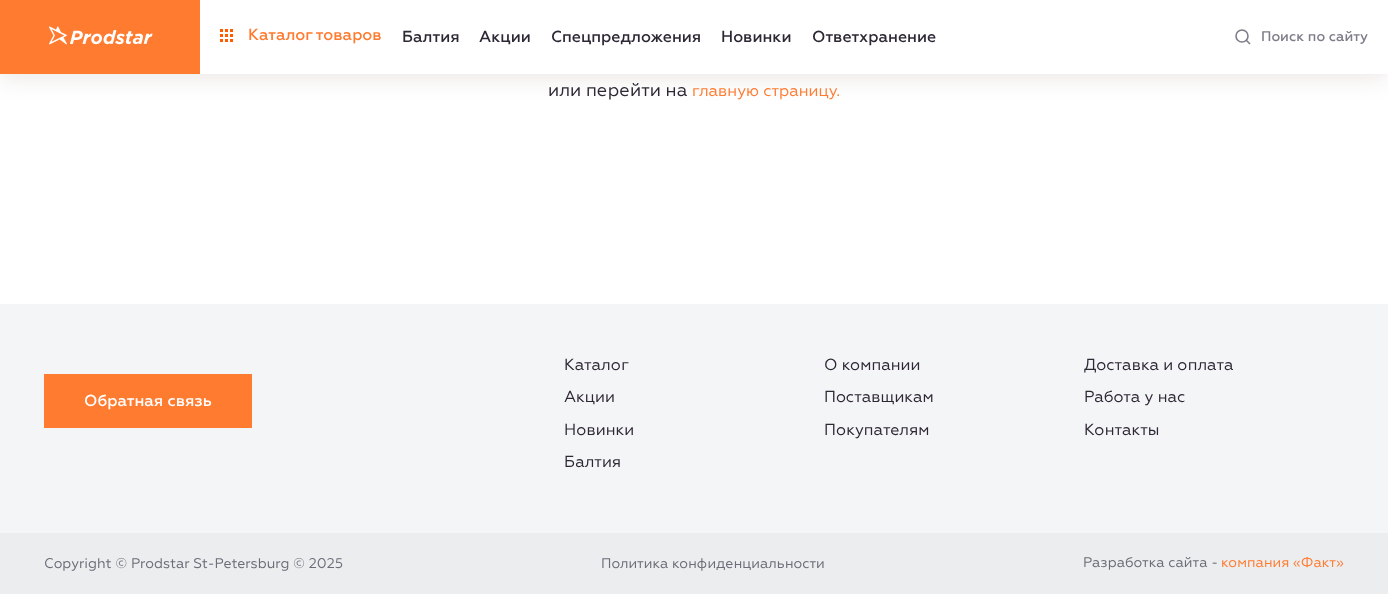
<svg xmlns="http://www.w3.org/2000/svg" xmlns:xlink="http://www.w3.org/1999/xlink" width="1388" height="594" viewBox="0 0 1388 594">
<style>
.cls-1{font:500 16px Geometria;fill:#ff7b30}
.cls-2{font:500 16px Geometria;fill:#2e2835}
.cls-3{font:500 14px Geometria;fill:#7e7d89}
.cls-4{font:18px Geometria;fill:#2e2835}
.cls-5{font:16px Geometria;fill:#ff7b30}
.cls-6{font:500 16px Geometria;fill:#ffffff}
.cls-7{font:16px Geometria;fill:#2e2835}
.cls-8{font:14px Geometria;fill:#6b6d78}
.cls-9{font:14px Geometria;fill:#ff7b30}
</style>
<rect width="100%" height="100%" fill="#ffffff"/>
<rect fill="#3a1900" fill-opacity="0.11" filter="blur(12.5px)" x="0" y="3" width="1388" height="74"/>
<rect fill="#ffffff" x="200" y="0" width="1188" height="74"/>
<rect fill="#ff7b30" x="0" y="0" width="200" height="74"/>
<image xlink:href="image0.png" x="49" y="26" width="104" height="19"/>
<image xlink:href="image1.png" x="220" y="29" width="13" height="13"/>
<circle fill="none" stroke="#7e7d89" stroke-width="1.6" cx="1242" cy="36" r="6"/>
<path fill="none" stroke="#7e7d89" stroke-width="1.6" d="M1250 44L1246 40"/>
<rect fill="#f4f5f7" x="0" y="304" width="1388" height="229"/>
<rect fill="#ff7b30" x="44" y="374" width="208" height="54"/>
<rect fill="#ecedef" x="0" y="533" width="1388" height="61"/>
<text class="cls-1" x="248" y="40">Каталог товаров</text>
<text class="cls-2" x="402" y="42">Балтия</text>
<text class="cls-2" x="479" y="42">Акции</text>
<text class="cls-2" x="551" y="42">Спецпредложения</text>
<text class="cls-2" x="721" y="42">Новинки</text>
<text class="cls-2" x="812" y="42">Ответхранение</text>
<text class="cls-3" x="1261" y="41">Поиск по сайту</text>
<text class="cls-4" x="548" y="96">или перейти на</text>
<text class="cls-5" x="692" y="96">главную страницу.</text>
<text class="cls-6" x="84" y="406">Обратная связь</text>
<text class="cls-7" x="564" y="370">Каталог</text>
<text class="cls-7" x="824" y="370">О компании</text>
<text class="cls-7" x="1084" y="370">Доставка и оплата</text>
<text class="cls-7" x="564" y="402">Акции</text>
<text class="cls-7" x="824" y="402">Поставщикам</text>
<text class="cls-7" x="1084" y="402">Работа у нас</text>
<text class="cls-7" x="564" y="435">Новинки</text>
<text class="cls-7" x="824" y="435">Покупателям</text>
<text class="cls-7" x="1084" y="435">Контакты</text>
<text class="cls-7" x="564" y="467">Балтия</text>
<text class="cls-8" x="44" y="568">Copyright © Prodstar St-Petersburg © 2025</text>
<text class="cls-8" x="601" y="568">Политика конфиденциальности</text>
<text class="cls-8" x="1083" y="567">Разработка сайта -</text>
<text class="cls-9" x="1221" y="567">компания «Факт»</text>
</svg>
